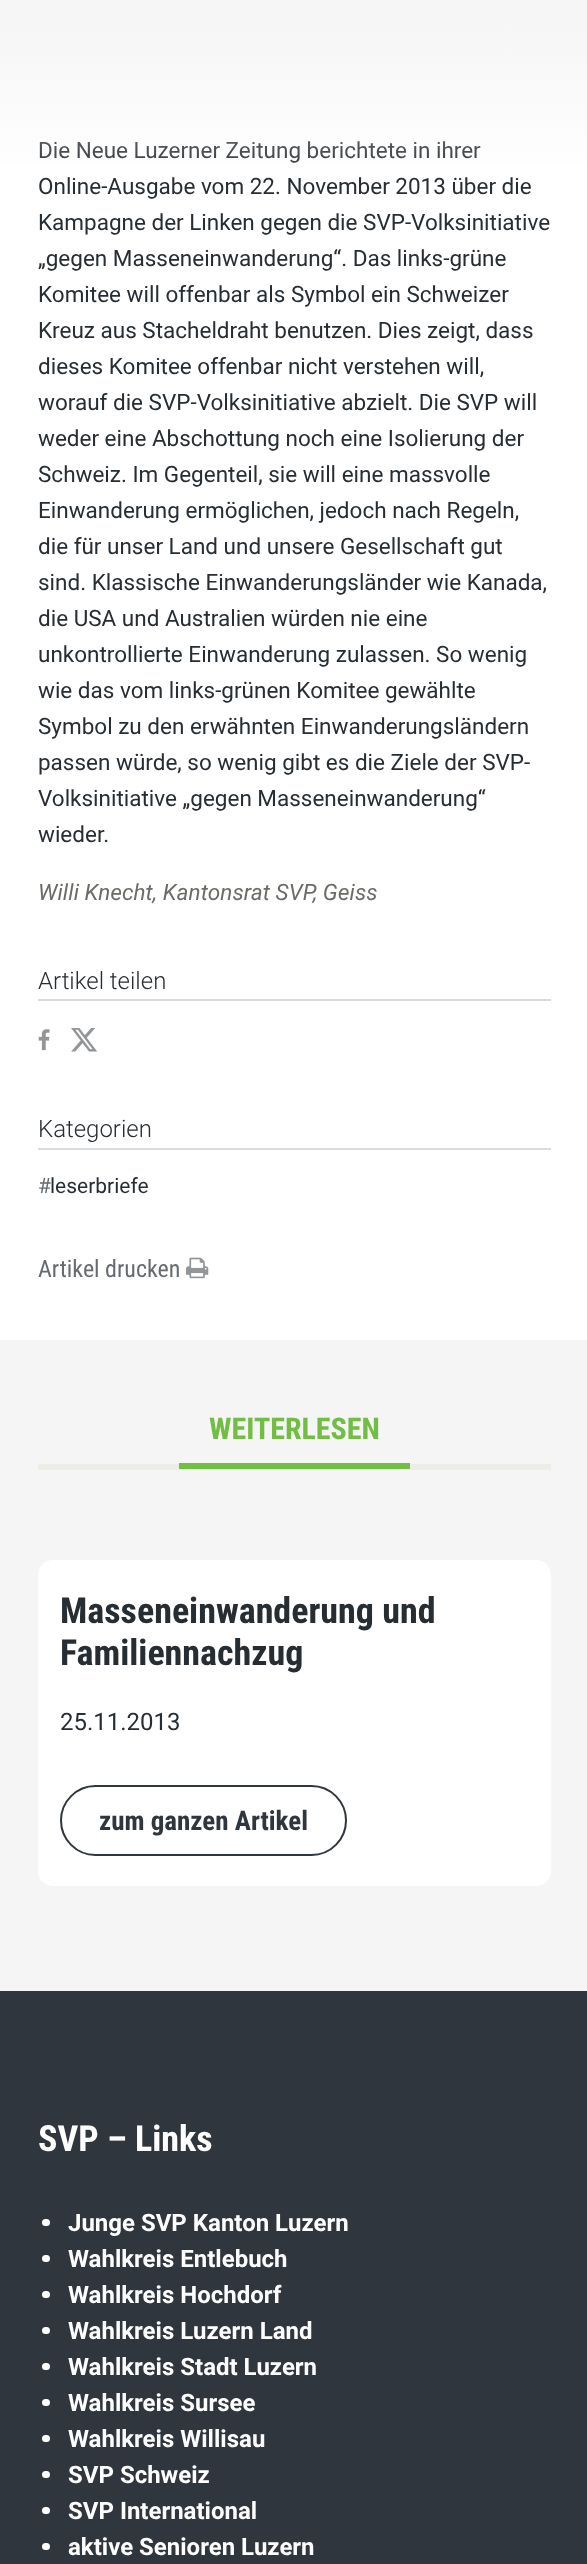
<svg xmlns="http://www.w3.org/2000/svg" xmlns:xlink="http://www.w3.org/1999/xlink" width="587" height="2564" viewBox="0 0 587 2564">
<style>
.cls-1{font:22.5px Roboto;fill:#262d33}
.cls-2{font:italic 22.5px Roboto;fill:#6c6b66}
.cls-3{font:300 24px Roboto;fill:#262d33}
.cls-4{font:21px Roboto;fill:#656b70}
.cls-5{font:21px Roboto;fill:#262d33}
.cls-6{font:24px Roboto Condensed;fill:#656b70}
.cls-7{font:bold 30px Roboto Condensed;fill:#72be44}
.cls-8{font:bold 36px Roboto Condensed;fill:#262d33}
.cls-9{font:24px Roboto;fill:#262d33}
.cls-10{font:bold 27px Roboto Condensed;fill:#30363d}
.cls-11{font:bold 36px Roboto Condensed;fill:#ffffff}
.cls-12{font:bold 24px Roboto;fill:#ffffff}
</style>
<defs>
<linearGradient id="g1" gradientUnits="userSpaceOnUse" x1="294" y1="0" x2="294" y2="180"><stop offset="0.1" stop-color="#f5f5f5" stop-opacity="0.95"/><stop offset="1" stop-color="#f5f5f5" stop-opacity="0"/></linearGradient>
</defs>
<rect width="100%" height="100%" fill="#f5f5f5"/>
<rect fill="#ffffff" x="0" y="0" width="587" height="1340"/>
<rect fill="#d9dadb" x="38" y="999" width="513" height="2"/>
<image xlink:href="image0.png" x="38" y="1029" width="12" height="22"/>
<image xlink:href="image1.png" x="71" y="1028" width="26" height="24"/>
<rect fill="#d9dadb" x="38" y="1148" width="513" height="2"/>
<image xlink:href="image2.png" x="186" y="1257" width="23" height="22"/>
<rect fill="#edece7" x="38" y="1464" width="513" height="6"/>
<rect fill="#72be44" x="179" y="1463" width="231" height="6"/>
<rect fill="#ffffff" x="38" y="1560" width="513" height="326" rx="15"/>
<rect fill="none" stroke="#30363d" stroke-width="2" x="61" y="1786" width="285" height="69" rx="34.5"/>
<rect fill="#30363d" x="0" y="1991" width="587" height="573"/>
<rect fill="#ffffff" x="42" y="2219" width="8" height="7" rx="3.5"/>
<rect fill="#ffffff" x="42" y="2255" width="8" height="7" rx="3.5"/>
<rect fill="#ffffff" x="42" y="2291" width="8" height="7" rx="3.5"/>
<rect fill="#ffffff" x="42" y="2327" width="8" height="7" rx="3.5"/>
<rect fill="#ffffff" x="42" y="2363" width="8" height="7" rx="3.5"/>
<rect fill="#ffffff" x="42" y="2399" width="8" height="7" rx="3.5"/>
<rect fill="#ffffff" x="42" y="2435" width="8" height="7" rx="3.5"/>
<rect fill="#ffffff" x="42" y="2471" width="8" height="7" rx="3.5"/>
<rect fill="#ffffff" x="42" y="2507" width="8" height="7" rx="3.5"/>
<rect fill="#ffffff" x="42" y="2543" width="8" height="7" rx="3.5"/>
<text class="cls-1" x="38" y="158">Die Neue Luzerner Zeitung berichtete in ihrer</text>
<rect fill="url(#g1)" x="0" y="0" width="587" height="163"/>
<text class="cls-1"><tspan x="38" y="194">Online-Ausgabe vom 22. November 2013 über die</tspan><tspan x="38" y="230">Kampagne der Linken gegen die SVP-Volksinitiative</tspan><tspan x="38" y="266">„gegen Masseneinwanderung“. Das links-grüne</tspan><tspan x="38" y="302">Komitee will offenbar als Symbol ein Schweizer</tspan><tspan x="38" y="338">Kreuz aus Stacheldraht benutzen. Dies zeigt, dass</tspan><tspan x="38" y="374">dieses Komitee offenbar nicht verstehen will,</tspan><tspan x="38" y="410">worauf die SVP-Volksinitiative abzielt. Die SVP will</tspan><tspan x="38" y="446">weder eine Abschottung noch eine Isolierung der</tspan><tspan x="38" y="482">Schweiz. Im Gegenteil, sie will eine massvolle</tspan><tspan x="38" y="518">Einwanderung ermöglichen, jedoch nach Regeln,</tspan><tspan x="38" y="554">die für unser Land und unsere Gesellschaft gut</tspan><tspan x="38" y="590">sind. Klassische Einwanderungsländer wie Kanada,</tspan><tspan x="38" y="626">die USA und Australien würden nie eine</tspan><tspan x="38" y="662">unkontrollierte Einwanderung zulassen. So wenig</tspan><tspan x="38" y="698">wie das vom links-grünen Komitee gewählte</tspan><tspan x="38" y="734">Symbol zu den erwähnten Einwanderungsländern</tspan><tspan x="38" y="770">passen würde, so wenig gibt es die Ziele der SVP-</tspan><tspan x="38" y="806">Volksinitiative „gegen Masseneinwanderung“</tspan><tspan x="38" y="842">wieder.</tspan></text>
<text class="cls-2" x="38" y="900">Willi Knecht, Kantonsrat SVP, Geiss</text>
<text class="cls-3" x="38" y="989">Artikel teilen</text>
<text class="cls-3" x="38" y="1137">Kategorien</text>
<text class="cls-4" x="38" y="1193">#</text>
<text class="cls-5" x="50" y="1193">leserbriefe</text>
<text class="cls-6" x="38" y="1277">Artikel drucken</text>
<text class="cls-7" x="209" y="1439">WEITERLESEN</text>
<text class="cls-8"><tspan x="60" y="1623">Masseneinwanderung und</tspan><tspan x="60" y="1665">Familiennachzug</tspan></text>
<text class="cls-9" x="60" y="1730">25.11.2013</text>
<text class="cls-10" x="99" y="1830">zum ganzen Artikel</text>
<text class="cls-11" x="38" y="2151">SVP – Links</text>
<text class="cls-12"><tspan x="68" y="2231">Junge SVP Kanton Luzern</tspan><tspan x="68" y="2267">Wahlkreis Entlebuch</tspan><tspan x="68" y="2303">Wahlkreis Hochdorf</tspan><tspan x="68" y="2339">Wahlkreis Luzern Land</tspan><tspan x="68" y="2375">Wahlkreis Stadt Luzern</tspan><tspan x="68" y="2411">Wahlkreis Sursee</tspan><tspan x="68" y="2447">Wahlkreis Willisau</tspan><tspan x="68" y="2483">SVP Schweiz</tspan><tspan x="68" y="2519">SVP International</tspan><tspan x="68" y="2555">aktive Senioren Luzern</tspan></text>
</svg>
